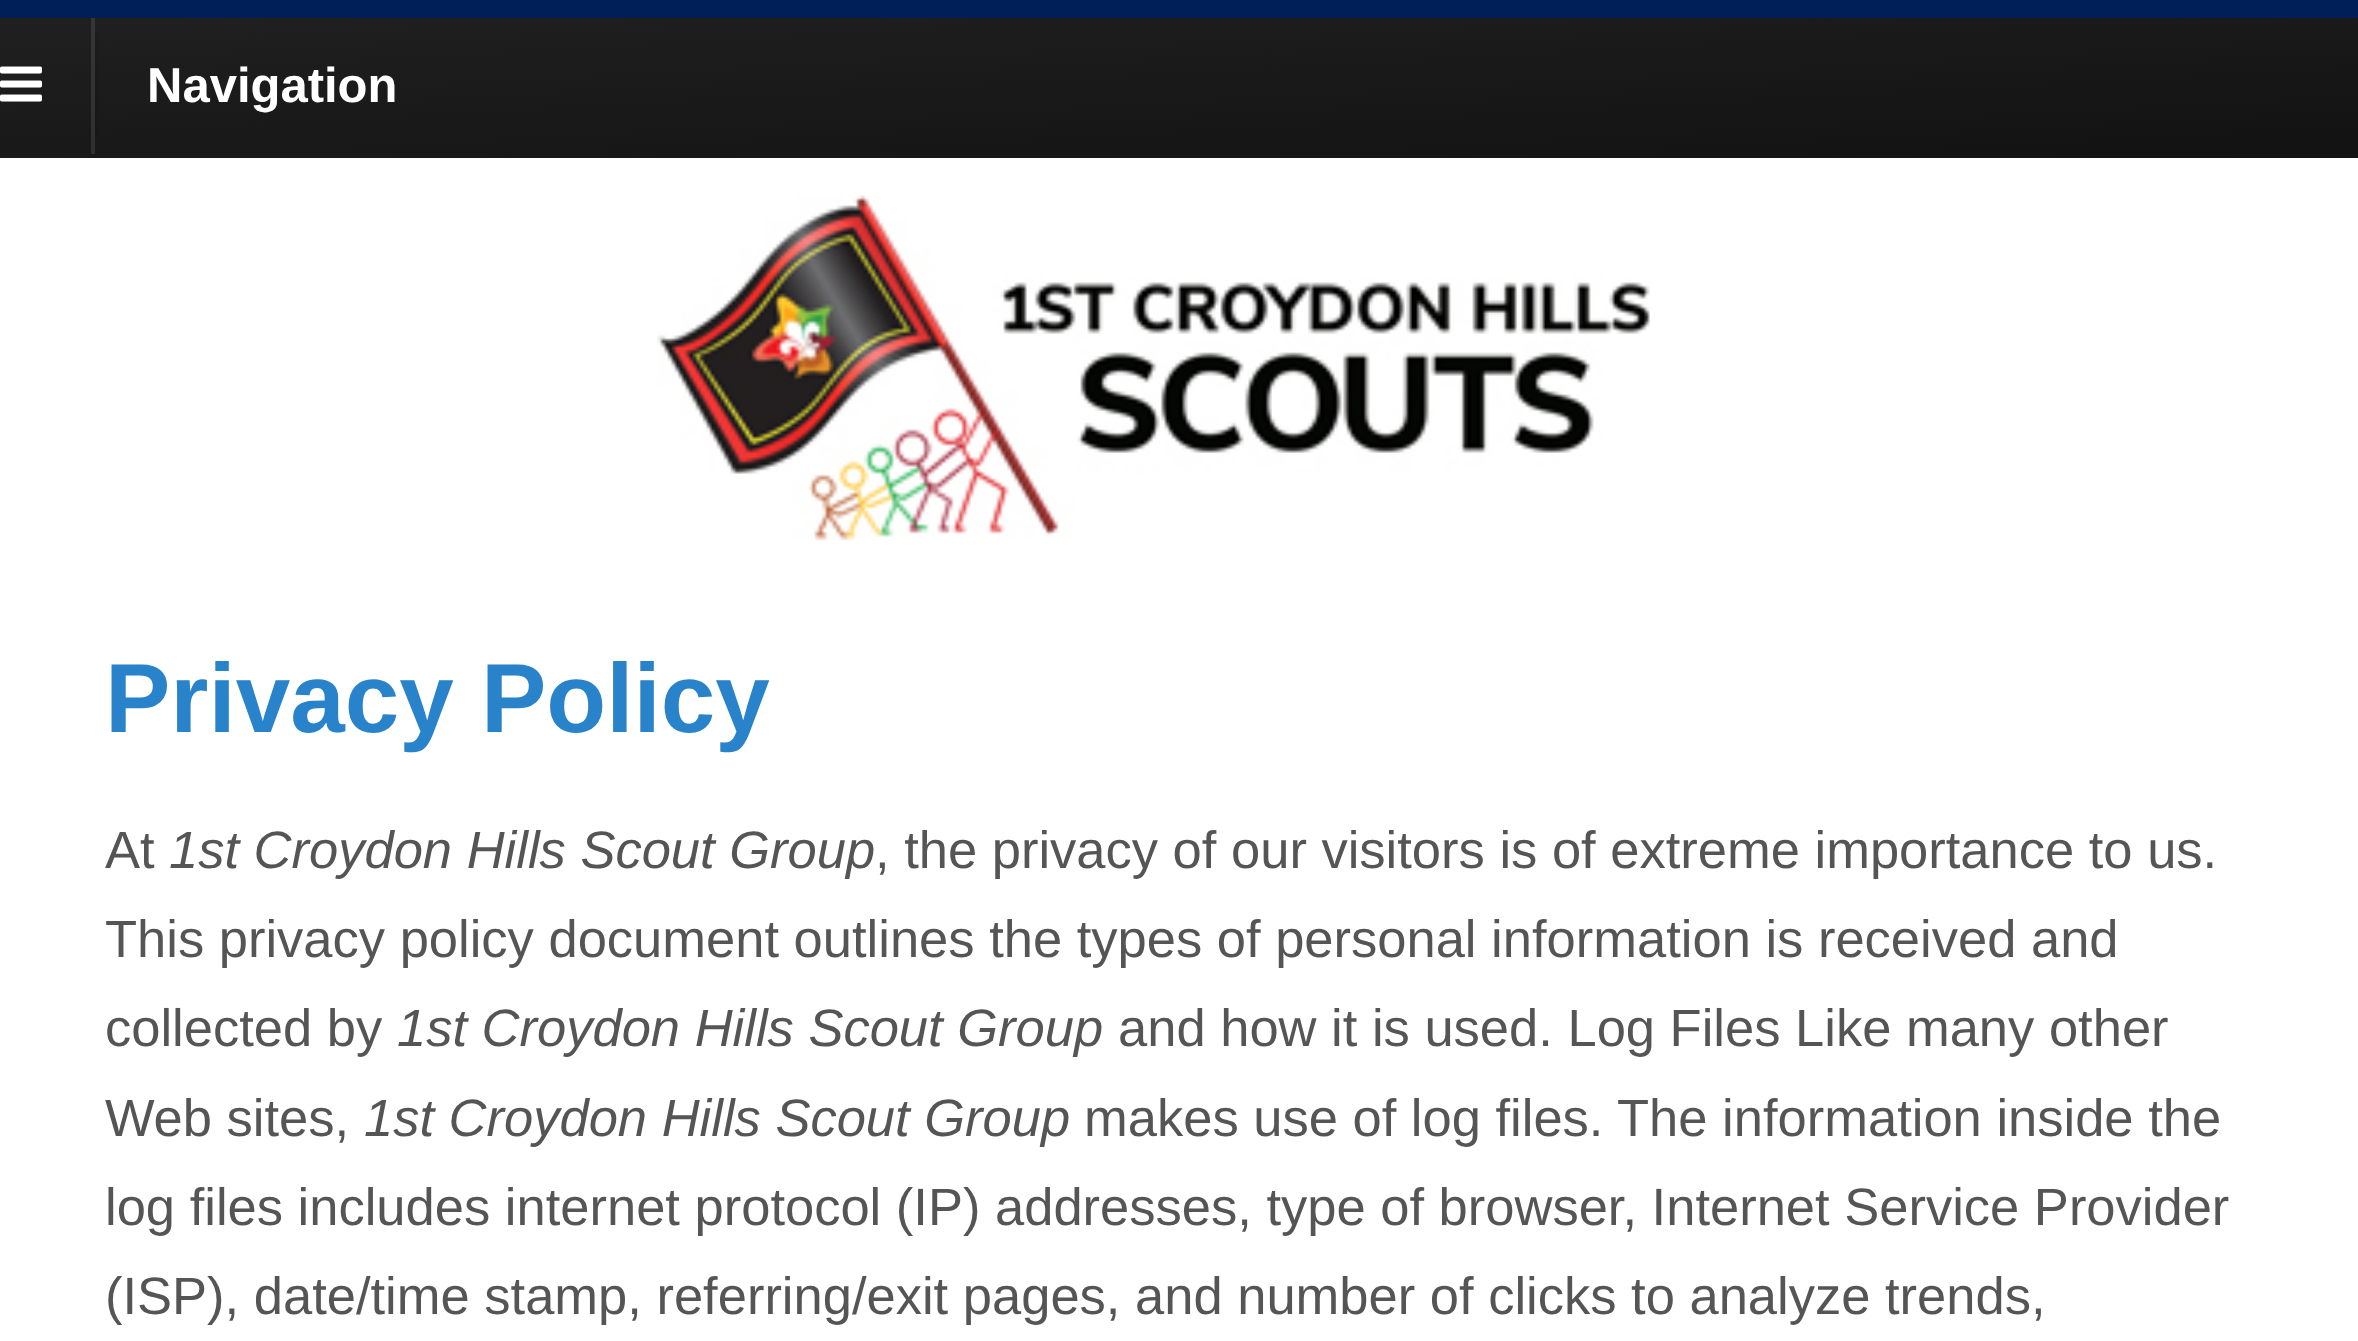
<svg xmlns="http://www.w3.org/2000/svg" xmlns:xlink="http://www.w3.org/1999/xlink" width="2358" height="1341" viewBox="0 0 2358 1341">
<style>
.cls-1{font:bold 49px Liberation Sans;fill:#ffffff}
.cls-2{font:bold 98px Liberation Sans;fill:#2983ca}
.cls-3{font:52.5px Liberation Sans;fill:#555555}
.cls-4{font:italic 52.5px Liberation Sans;fill:#555555}
</style>
<defs>
<linearGradient id="g1" gradientUnits="userSpaceOnUse" x1="1172" y1="-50" x2="1187" y2="222"><stop offset="0" stop-color="#202020"/><stop offset="1" stop-color="#121212"/></linearGradient>
<linearGradient id="g2" gradientUnits="userSpaceOnUse" x1="1172" y1="-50" x2="1187" y2="222"><stop offset="0" stop-color="#1d1d1d"/><stop offset="1" stop-color="#101010"/></linearGradient>
<linearGradient id="g3" gradientUnits="userSpaceOnUse" x1="1172" y1="-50" x2="1187" y2="222"><stop offset="0" stop-color="#363636"/><stop offset="1" stop-color="#2a2a2a"/></linearGradient>
<linearGradient id="g4" gradientUnits="userSpaceOnUse" x1="1172" y1="86" x2="1187" y2="358"><stop offset="0" stop-color="#1a1a1a"/><stop offset="1" stop-color="#0e0e0e"/></linearGradient>
</defs>
<rect width="100%" height="100%" fill="#ffffff"/>
<rect fill="#001f58" x="0" y="0" width="2358" height="18"/>
<rect fill="url(#g1)" x="0" y="18" width="2358" height="136"/>
<rect fill="url(#g2)" x="95" y="32" width="4" height="105"/>
<rect fill="url(#g3)" x="91" y="18" width="4" height="136"/>
<rect fill="url(#g4)" x="0" y="154" width="2358" height="4"/>
<image xlink:href="image0.png" x="0" y="66" width="42" height="36"/>
<image xlink:href="image1.png" x="657" y="195" width="993" height="346"/>
<text class="cls-1" x="147" y="102">Navigation</text>
<text class="cls-2" x="105" y="732">Privacy Policy</text>
<text class="cls-3" x="105" y="868">At</text>
<text class="cls-4" x="169" y="868">1st Croydon Hills Scout Group</text>
<text class="cls-3" x="875" y="868">, the privacy of our visitors is of extreme importance to us.</text>
<text class="cls-3"><tspan x="105" y="957">This privacy policy document outlines the types of personal information is received and</tspan><tspan x="105" y="1046">collected by</tspan></text>
<text class="cls-4" x="397" y="1046">1st Croydon Hills Scout Group</text>
<text class="cls-3" x="1118" y="1046">and how it is used. Log Files Like many other</text>
<text class="cls-3" x="105" y="1136">Web sites,</text>
<text class="cls-4" x="364" y="1136">1st Croydon Hills Scout Group</text>
<text class="cls-3" x="1084" y="1136">makes use of log files. The information inside the</text>
<text class="cls-3"><tspan x="105" y="1225">log files includes internet protocol (IP) addresses, type of browser, Internet Service Provider</tspan><tspan x="105" y="1314">(ISP), date/time stamp, referring/exit pages, and number of clicks to analyze trends,</tspan></text>
</svg>
